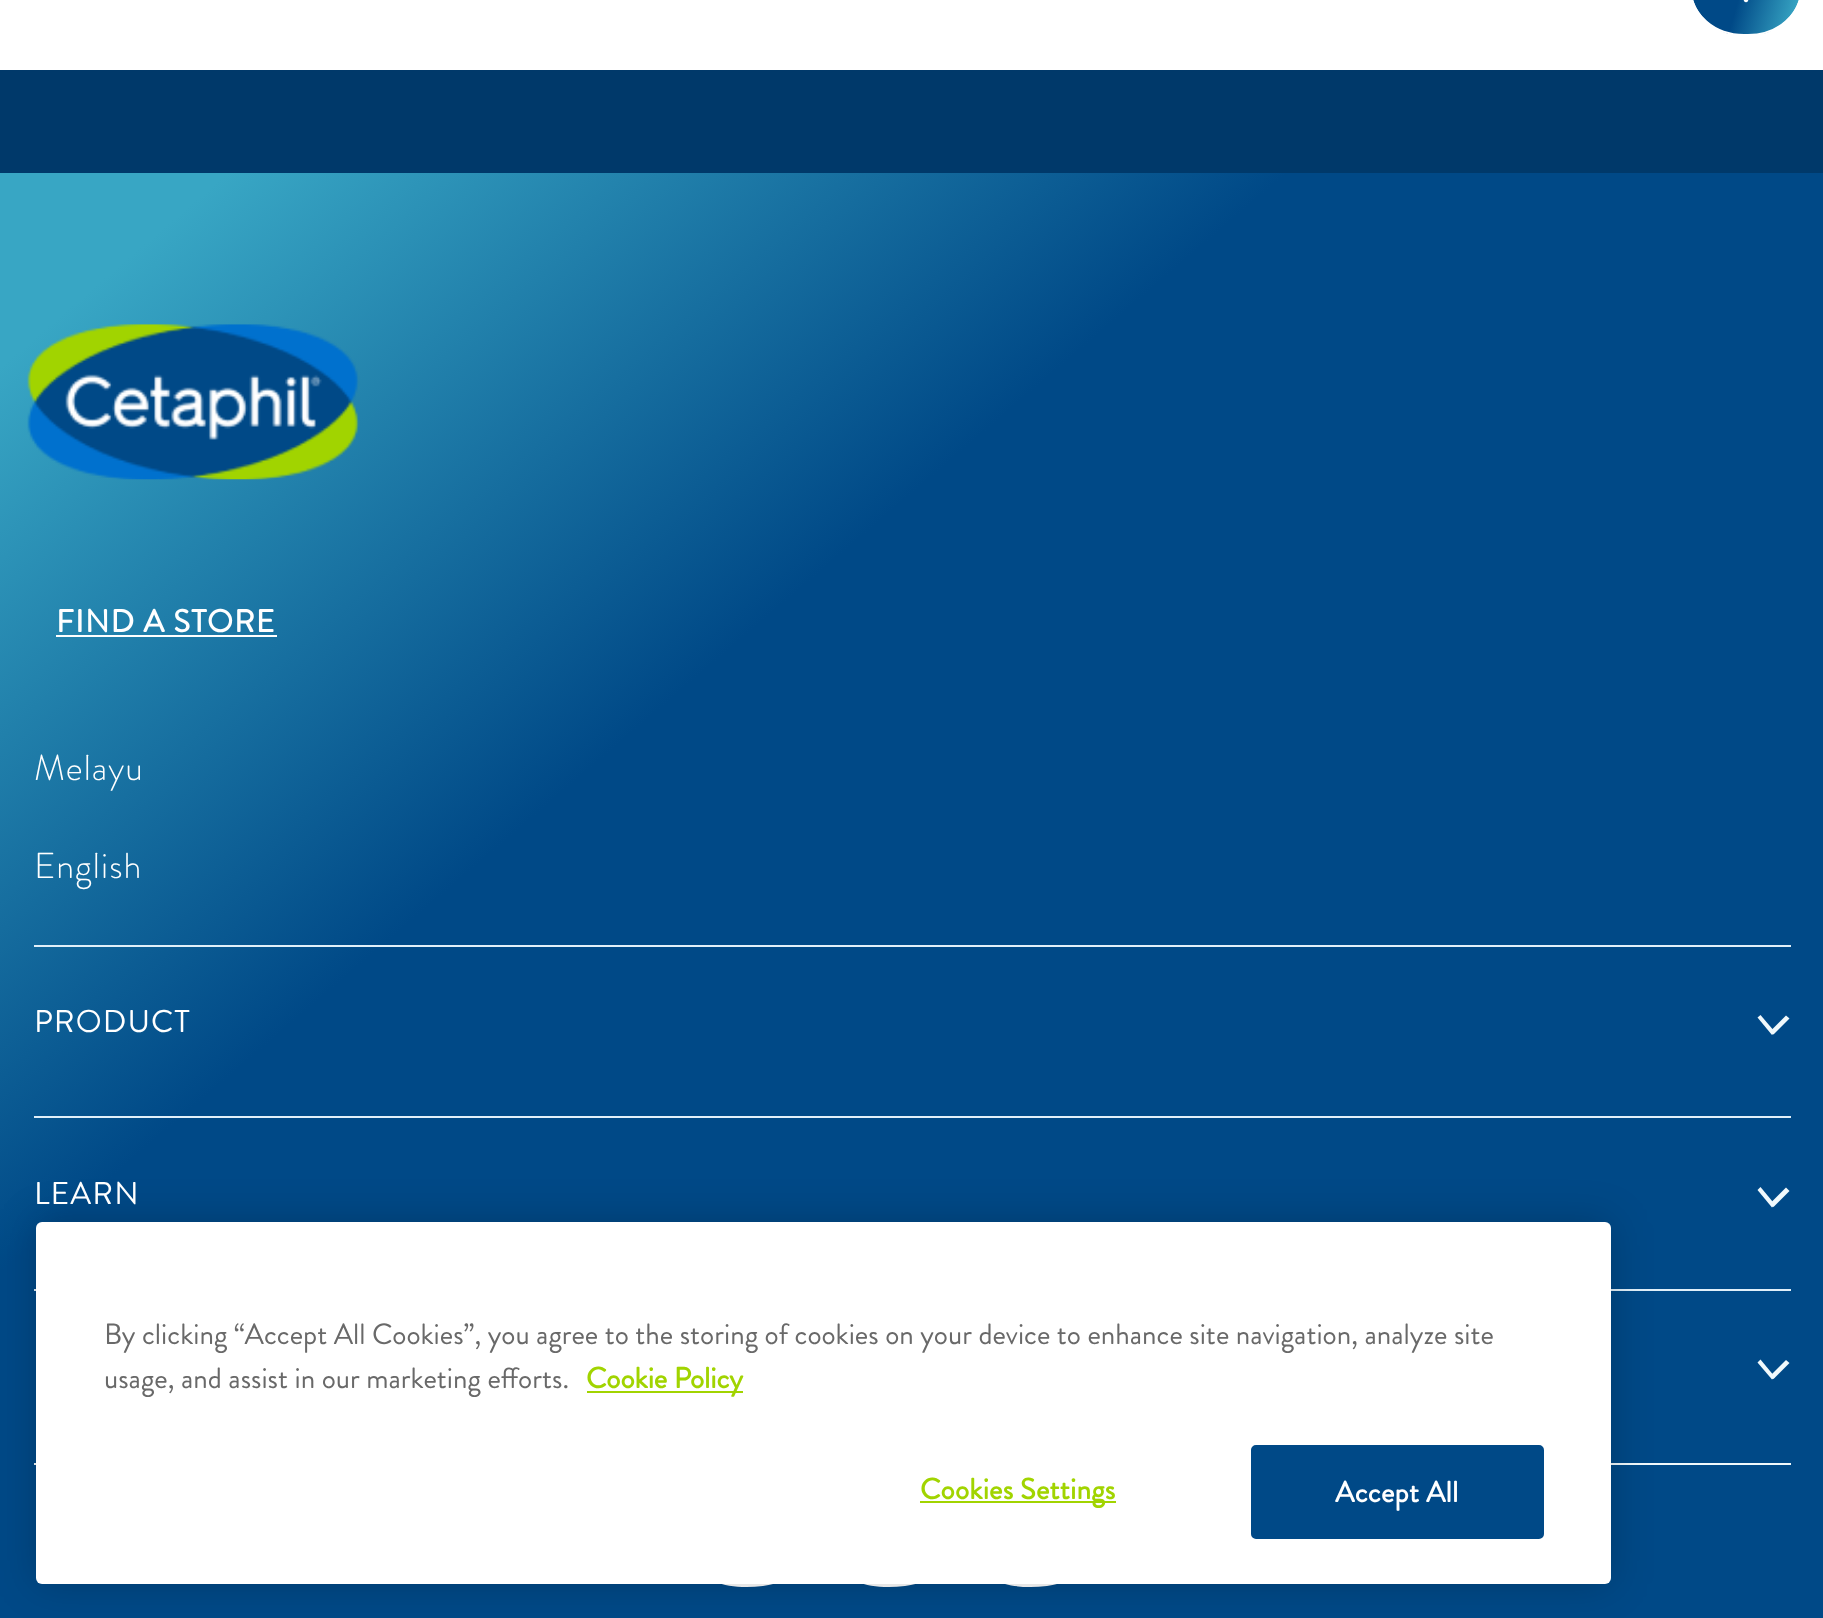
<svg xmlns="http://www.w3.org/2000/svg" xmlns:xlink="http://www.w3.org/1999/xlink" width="1823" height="1618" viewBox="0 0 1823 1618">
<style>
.cls-1{font:bold 31.5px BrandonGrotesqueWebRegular;letter-spacing:1.1px;fill:#ffffff}
.cls-2{font:300 36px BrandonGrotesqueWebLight;letter-spacing:1.1px;fill:#ffffff}
.cls-3{font:31.5px BrandonGrotesqueWebRegular;letter-spacing:1.1px;fill:#ffffff}
.cls-4{font:29.25px BrandonGrotesqueWebRegular;fill:#696969}
.cls-5{font:bold 29.25px BrandonGrotesqueWebRegular;fill:#a1d400}
.cls-6{font:bold 29.25px BrandonGrotesqueWebRegular;letter-spacing:0.25px;fill:#a1d400}
.cls-7{font:bold 29.25px BrandonGrotesqueWebRegular;letter-spacing:0.25px;fill:#ffffff}
</style>
<defs>
<clipPath id="clip1"><rect x="1690" y="-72" width="112" height="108" rx="54"/></clipPath>
<linearGradient id="g1" gradientUnits="userSpaceOnUse" x1="1683" y1="-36" x2="1809" y2="-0.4"><stop offset="0.48" stop-color="#004987"/><stop offset="0.94" stop-color="#38a6c4"/></linearGradient>
<linearGradient id="g2" gradientUnits="userSpaceOnUse" x1="1710" y1="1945" x2="114" y2="76"><stop offset="0.66" stop-color="#004987"/><stop offset="0.94" stop-color="#38a6c4"/></linearGradient>
</defs>
<rect width="100%" height="100%" fill="#ffffff"/>
<g clip-path="url(#clip1)">
<rect fill="url(#g1)" x="1693" y="0" width="106" height="34"/>
</g>
<rect fill="none" stroke="#ffffff" stroke-width="2" x="1691" y="-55" width="110" height="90" rx="53"/>
<image xlink:href="image0.png" x="1743" y="0" width="6" height="3"/>
<rect fill="#00396a" x="0" y="70" width="1823" height="103"/>
<rect fill="url(#g2)" x="0" y="173" width="1823" height="1445"/>
<image xlink:href="image1.png" x="27" y="324" width="333" height="156"/>
<rect fill="#ffffff" x="56" y="635" width="221" height="2"/>
<rect fill="#e0eff9" x="34" y="945" width="1757" height="2"/>
<path fill="#f1f9fc" d="M1772 1035L1757.5 1017.5L1760.5 1015L1775 1032Z"/>
<path fill="#f1f9fc" d="M1789.5 1018.5L1773.5 1034.5L1770 1031.5L1786 1015.5Z"/>
<rect fill="#e0eff9" x="34" y="1116" width="1757" height="2"/>
<path fill="#f1f9fc" d="M1772 1207.5L1757.5 1190L1760.5 1187L1775 1204.5Z"/>
<path fill="#f1f9fc" d="M1789.5 1191L1773.5 1207L1770 1203.5L1786 1187.5Z"/>
<rect fill="#f1f9fc" x="34" y="1463" width="1757" height="2"/>
<rect fill="#e0eff9" x="34" y="1289" width="1757" height="2"/>
<path fill="#f1f9fc" d="M1772 1379.5L1757.5 1362.5L1760.5 1359.5L1775 1377Z"/>
<path fill="#f1f9fc" d="M1789.5 1363L1773.5 1379L1770 1376L1786 1360Z"/>
<path fill="#ffffff" d="M756 1534C788 1529 816 1537 818 1551C820 1566 795 1581 763 1586C731 1590 703 1582 701 1568C699 1553 724 1538 756 1534Z"/>
<path fill="#ffffff" d="M898 1534C930 1529 957 1537 959 1551C961 1566 937 1581 905 1586C873 1590 845 1582 843 1568C841 1553 865 1538 898 1534Z"/>
<path fill="#ffffff" d="M1039 1534C1071 1529 1099 1537 1101 1551C1103 1566 1079 1581 1047 1586C1014 1590 987 1582 985 1568C983 1553 1007 1538 1039 1534Z"/>
<rect fill="#000000" fill-opacity="0.2" filter="blur(20px)" x="36" y="1222" width="1575" height="362" rx="6"/>
<rect fill="#ffffff" x="36" y="1222" width="1575" height="362" rx="6"/>
<rect fill="#a1d400" x="587" y="1391" width="156" height="2"/>
<rect fill="#a1d400" x="920" y="1501" width="196" height="2"/>
<rect fill="#004987" stroke="#004987" stroke-width="2" x="1252" y="1446" width="291" height="92" rx="4"/>
<text class="cls-1" x="56" y="632">FIND A STORE</text>
<text class="cls-2" x="34" y="780">Melayu</text>
<text class="cls-2" x="34" y="878">English</text>
<text class="cls-3" x="34" y="1032">PRODUCT</text>
<text class="cls-3" x="34" y="1204">LEARN</text>
<text class="cls-4"><tspan x="104" y="1344">By clicking “Accept All Cookies”, you agree to the storing of cookies on your device to enhance site navigation, analyze site</tspan><tspan x="104" y="1388">usage, and assist in our marketing efforts.</tspan></text>
<text class="cls-5" x="586" y="1388">Cookie Policy</text>
<text class="cls-6" x="920" y="1499">Cookies Settings</text>
<text class="cls-7" x="1335" y="1502">Accept All</text>
</svg>
